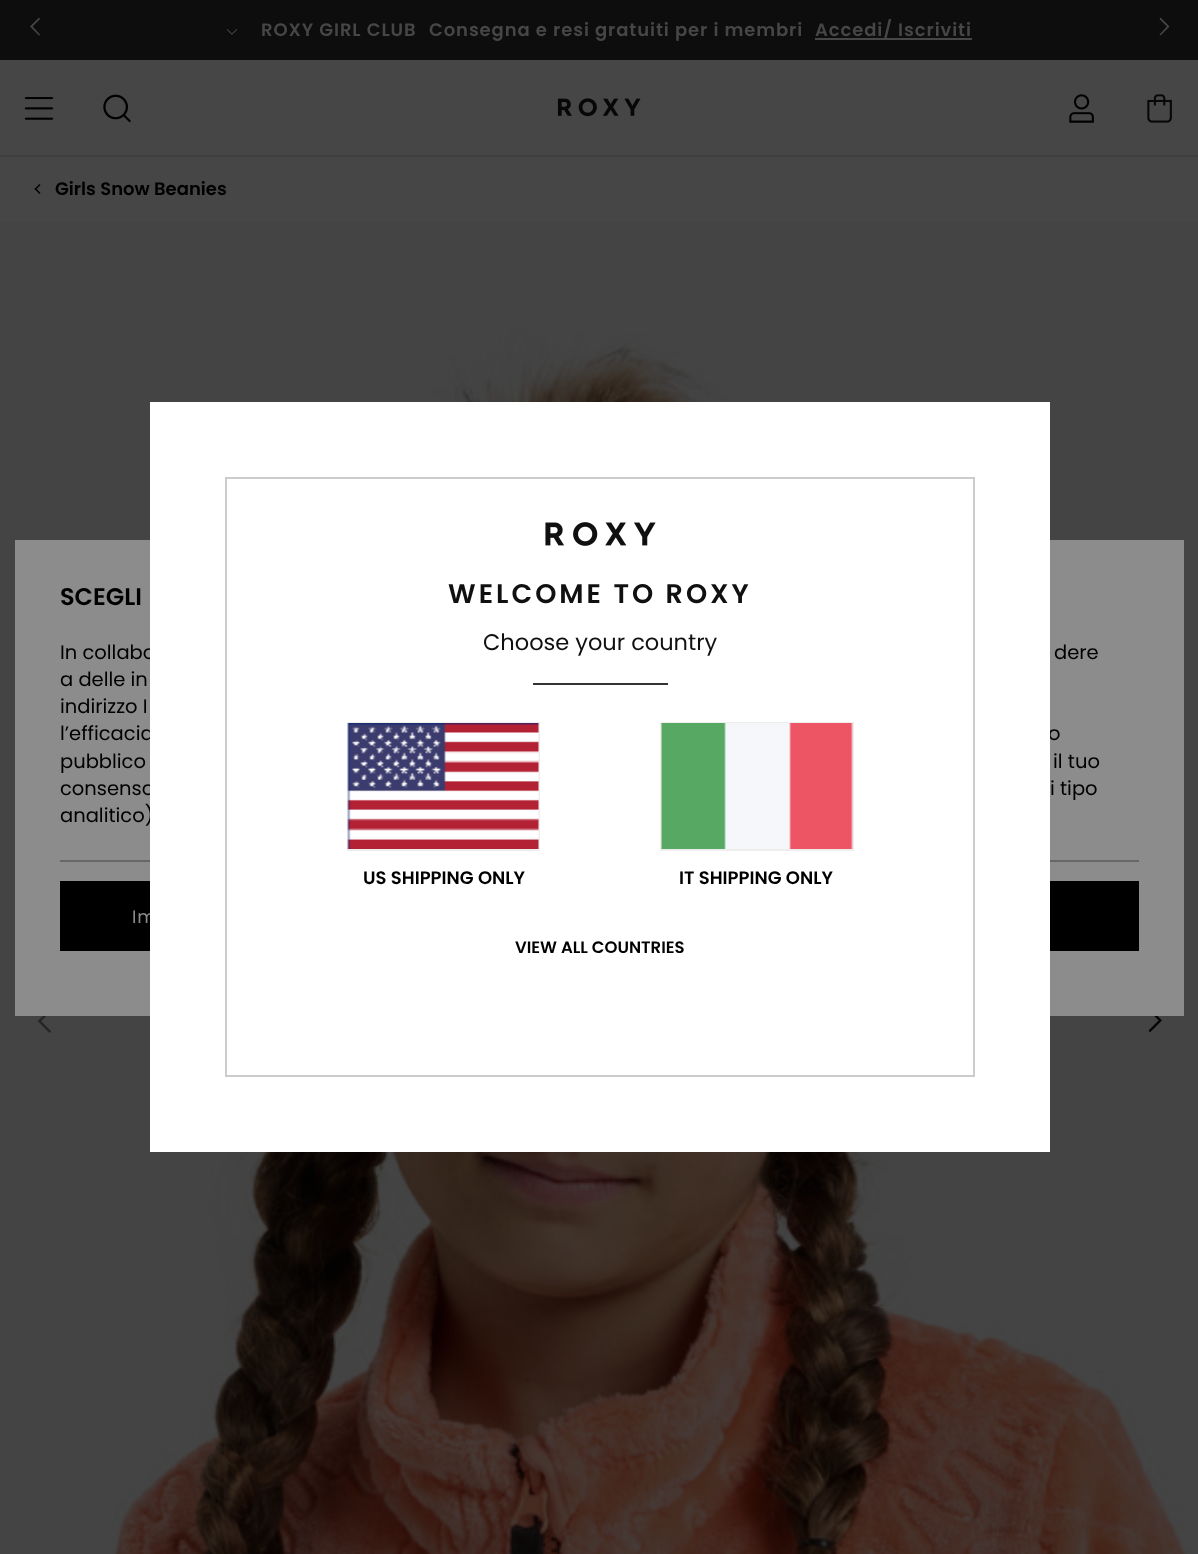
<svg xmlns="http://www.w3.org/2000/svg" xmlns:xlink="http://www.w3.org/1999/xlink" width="1198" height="1554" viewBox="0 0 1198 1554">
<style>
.cls-1{font:600 18px Poppins;letter-spacing:0.9px;fill:#464646}
.cls-2{font:600 18px Poppins;fill:#000000}
.cls-3{font:600 24px Poppins;fill:#000000}
.cls-4{font:19.5px Poppins;fill:#000000}
.cls-5{font:18px Poppins;letter-spacing:0.9px;fill:#8c8c8c}
.cls-6{font:600 16.5px Poppins;fill:#000000}
.cls-7{font:22.5px Poppins;fill:#101010}
.cls-8{font:600 27px Poppins;letter-spacing:3px;fill:#101010}
</style>
<rect width="100%" height="100%" fill="#464646"/>
<rect fill="#0d0d0d" x="0" y="0" width="1198" height="60"/>
<path fill="#464646" d="M40 19L39 17.5L30 26.5L39 35.5L40 34.5L32.5 26.5Z"/>
<image xlink:href="image0.png" x="227" y="29" width="11" height="6"/>
<rect fill="#464646" x="815" y="38" width="157" height="2"/>
<path fill="#464646" d="M1159.5 34.5L1160.5 35.5L1169.5 26.5L1160.5 17.5L1159.5 19L1167 26.5Z"/>
<image xlink:href="image1.png" x="24" y="97" width="30" height="23"/>
<image xlink:href="image2.png" x="103" y="94" width="28" height="29"/>
<image xlink:href="image3.png" x="1069" y="94" width="25" height="29"/>
<image xlink:href="image4.png" x="1147" y="94" width="25" height="29"/>
<rect fill="#3f3f3f" x="0" y="155" width="1198" height="2"/>
<image xlink:href="image5.png" x="557" y="98" width="84" height="19"/>
<path fill="#000000" d="M40.5 193L39.5 194L34.5 189L35.5 188Z"/>
<path fill="#000000" d="M40.5 185L35.5 190L34.5 189L39.5 184Z"/>
<image xlink:href="image6.png" x="0" y="222" width="1198" height="1332"/>
<image xlink:href="image7.png" x="37" y="1016" width="14" height="17"/>
<image xlink:href="image8.png" x="1148" y="1016" width="14" height="16"/>
<rect fill="#8c8c8c" x="15" y="540" width="1169" height="476"/>
<rect fill="#676767" x="60" y="860" width="1079" height="2"/>
<rect fill="#000000" x="60" y="881" width="90" height="70"/>
<rect fill="#000000" x="1050" y="881" width="89" height="70"/>
<text class="cls-1" x="261" y="36">ROXY GIRL CLUB</text>
<text class="cls-1" x="429" y="36">Consegna e resi gratuiti per i membri</text>
<text class="cls-1" x="815" y="36">Accedi/ Iscriviti</text>
<text class="cls-2" x="55" y="195">Girls Snow Beanies</text>
<text class="cls-3" x="60" y="605">SCEGLI</text>
<text class="cls-4" x="60" y="659">In collabo</text>
<text class="cls-4" x="1054" y="659">dere</text>
<text class="cls-4"><tspan x="60" y="686">a delle in</tspan><tspan x="60" y="713">indirizzo I</tspan><tspan x="60" y="740">l’efficacia</tspan></text>
<text class="cls-4" x="1048" y="740">o</text>
<text class="cls-4" x="60" y="768">pubblico</text>
<text class="cls-4" x="1053" y="768">il tuo</text>
<text class="cls-4" x="60" y="795">consenso</text>
<text class="cls-4" x="1050" y="795">i tipo</text>
<text class="cls-4" x="60" y="822">analitico)</text>
<text class="cls-5" x="132" y="923">Im</text>
<rect fill="#ffffff" x="150" y="402" width="900" height="750"/>
<rect fill="none" stroke="#cccccc" stroke-width="2" x="226" y="478" width="748" height="598"/>
<text class="cls-6" x="515" y="953">VIEW ALL COUNTRIES</text>
<text class="cls-7" x="483" y="650">Choose your country</text>
<text class="cls-8" x="448" y="603">WELCOME TO ROXY</text>
<image xlink:href="image9.png" x="545" y="522" width="111" height="24"/>
<text class="cls-2" x="679" y="884">IT SHIPPING ONLY</text>
<rect fill="none" stroke="#eeeeee" stroke-width="2" x="661" y="723" width="192" height="127"/>
<image xlink:href="image11.png" x="661" y="723" width="192" height="126"/>
<text class="cls-2" x="363" y="884">US SHIPPING ONLY</text>
<rect fill="none" stroke="#eeeeee" stroke-width="2" x="348" y="723" width="191" height="127"/>
<image xlink:href="image10.png" x="347" y="723" width="192" height="126"/>
<rect fill="#333333" x="533" y="683" width="135" height="2"/>
</svg>
